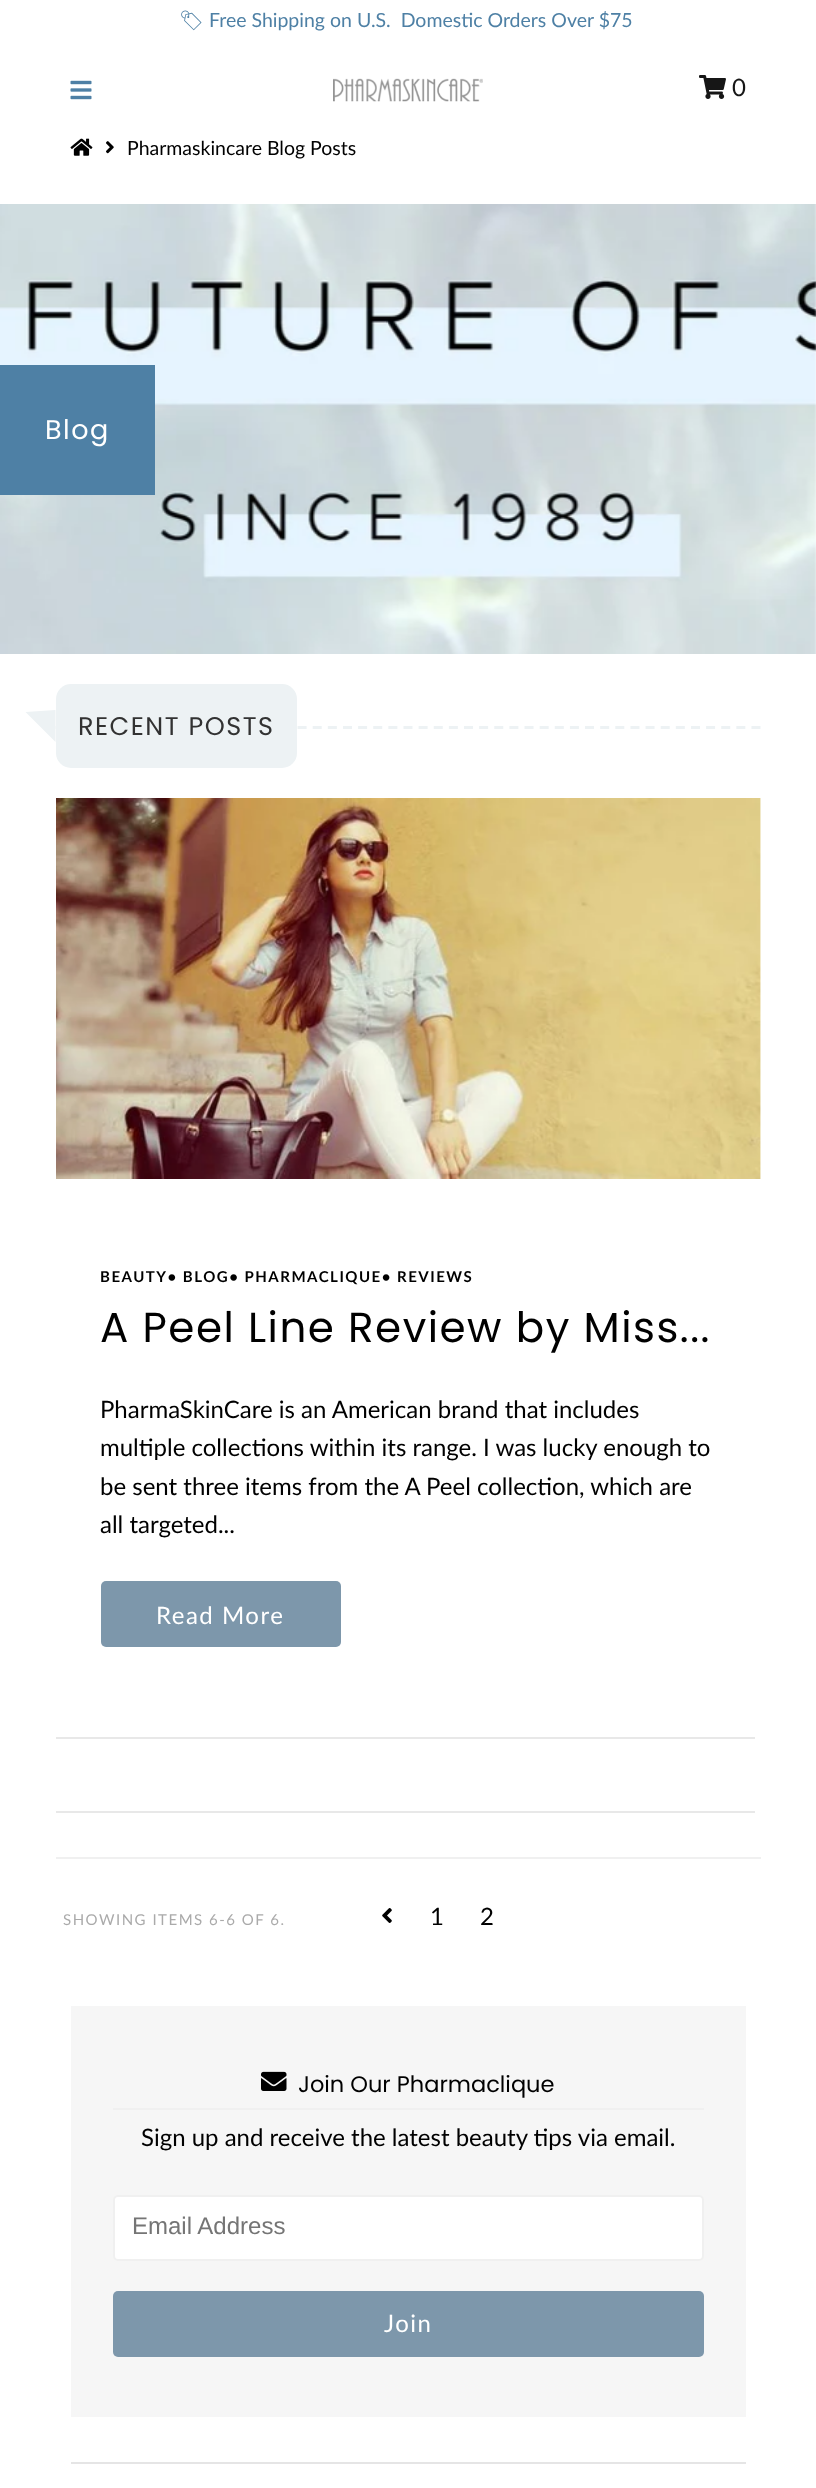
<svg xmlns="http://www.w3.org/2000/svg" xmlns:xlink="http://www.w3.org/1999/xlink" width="816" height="2488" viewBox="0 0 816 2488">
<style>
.cls-1{font:19.5px Noto Emoji;fill:#4e80a5}
.cls-2{font:19.5px Lato;fill:#4e80a5}
.cls-3{font:24px Lato;fill:#161616}
.cls-4{font:19.5px Lato;fill:#000000}
.cls-5{font:27px Poppins;letter-spacing:1.5px;fill:#ffffff}
.cls-6{font:25.5px Poppins;letter-spacing:1.5px;fill:#323232}
.cls-7{font:bold 15px Lato;letter-spacing:1.5px;fill:#000000}
.cls-8{font:42px Poppins;letter-spacing:1.5px;fill:#000000}
.cls-9{font:24px Lato;fill:#000000}
.cls-10{font:24px Lato;letter-spacing:1.5px;fill:#ffffff}
.cls-11{font:15px Lato;letter-spacing:1.5px;fill:#aaaaaa}
.cls-12{font:22.5px Poppins;fill:#000000}
.cls-13{font:24px Liberation Sans;fill:#757575}
</style>
<rect width="100%" height="100%" fill="#ffffff"/>
<image xlink:href="image0.png" x="70" y="80" width="22" height="20"/>
<image xlink:href="image1.png" x="333" y="78" width="150" height="24"/>
<image xlink:href="image2.png" x="699" y="75" width="27" height="24"/>
<image xlink:href="image3.png" x="70" y="138" width="23" height="18"/>
<image xlink:href="image4.png" x="106" y="141" width="8" height="13"/>
<image xlink:href="image5.png" x="0" y="204" width="816" height="450"/>
<rect fill="#4e80a5" x="0" y="365" width="155" height="130"/>
<path fill="none" stroke="#edf2f4" stroke-width="3" stroke-dasharray="9 6.13" d="M55.5 727.5H760.5"/>
<rect fill="#edf2f4" x="56" y="684" width="241" height="84" rx="15"/>
<path fill="#edf2f4" d="M55.5 710V742L25.5 712Z"/>
<rect fill="#f0f0f0" x="56" y="1857" width="705" height="2"/>
<image xlink:href="image6.png" x="56" y="798" width="705" height="381"/>
<rect fill="#7d97ab" x="101" y="1581" width="240" height="66" rx="5"/>
<rect fill="#e8e8e8" x="56" y="1737" width="699" height="2"/>
<rect fill="#e8e8e8" x="56" y="1811" width="699" height="2"/>
<image xlink:href="image7.png" x="382" y="1908" width="10" height="15"/>
<rect fill="#e5e5e5" x="71" y="2462" width="675" height="2"/>
<rect fill="#f6f6f6" x="71" y="2006" width="675" height="411"/>
<rect fill="#f0f0f0" x="113" y="2108" width="591" height="2"/>
<image xlink:href="image8.png" x="261" y="2071" width="26" height="20"/>
<rect fill="#ffffff" stroke="#f0f0f0" stroke-width="2" x="114" y="2196" width="589" height="64" rx="4"/>
<rect fill="#7d97ab" x="113" y="2291" width="591" height="66" rx="5"/>
<text class="cls-1" x="179" y="27">🏷</text>
<text class="cls-2" xml:space="preserve" x="209" y="27">Free Shipping on U.S.  Domestic Orders Over $75</text>
<text class="cls-3" x="732" y="96">0</text>
<text class="cls-4" x="127" y="155">Pharmaskincare Blog Posts</text>
<text class="cls-5" x="45" y="439">Blog</text>
<text class="cls-6" x="78" y="735">RECENT POSTS</text>
<text class="cls-7" x="100" y="1282">BEAUTY• BLOG• PHARMACLIQUE• REVIEWS</text>
<text class="cls-8" x="100" y="1342">A Peel Line Review by Miss...</text>
<text class="cls-9"><tspan x="100" y="1418">PharmaSkinCare is an American brand that includes</tspan><tspan x="100" y="1456">multiple collections within its range. I was lucky enough to</tspan><tspan x="100" y="1495">be sent three items from the A Peel collection, which are</tspan><tspan x="100" y="1533">all targeted...</tspan></text>
<text class="cls-10" x="156" y="1624">Read More</text>
<text class="cls-11" x="63" y="1925">SHOWING ITEMS 6-6 OF 6.</text>
<text class="cls-9" x="430" y="1925">1</text>
<text class="cls-9" x="480" y="1925">2</text>
<text class="cls-12" x="298" y="2092">Join Our Pharmaclique</text>
<text class="cls-9" x="141" y="2146">Sign up and receive the latest beauty tips via email.</text>
<text class="cls-13" x="132" y="2234">Email Address</text>
<text class="cls-10" x="384" y="2332">Join</text>
</svg>
